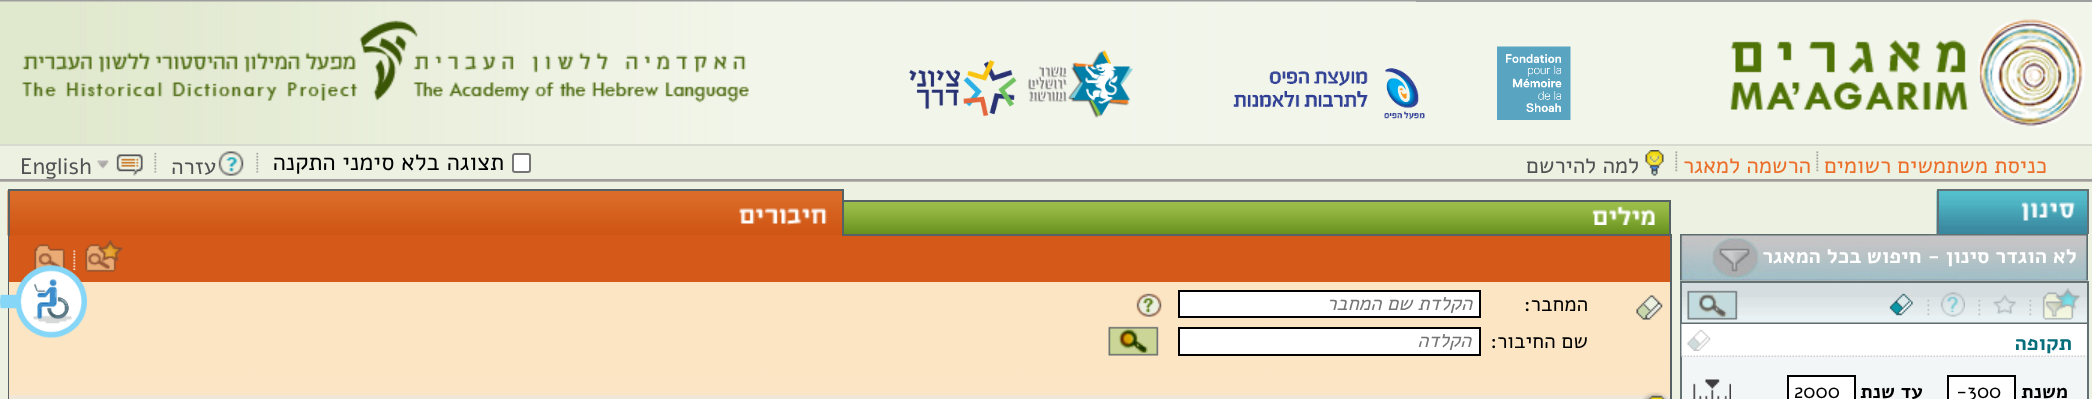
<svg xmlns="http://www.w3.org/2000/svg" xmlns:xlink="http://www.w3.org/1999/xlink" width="2092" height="399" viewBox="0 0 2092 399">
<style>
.cls-1{font:22.5px Alef;direction:rtl;fill:#eb6f2b}
.cls-2{font:22.5px Alef;direction:rtl;fill:#525254}
.cls-3{font:24px Alef;direction:rtl;fill:#000000}
.cls-4{font:22.5px Alef;fill:#525254}
.cls-5{font:bold 21px Alef;direction:rtl;fill:#ffffff}
.cls-6{font:bold 21px Alef;direction:rtl;fill:#066d7a}
.cls-7{font:bold 19.5px Alef;direction:rtl;fill:#000000}
.cls-8{font:20px Alef;fill:#000000}
.cls-9{font:21px Alef;direction:rtl;fill:#000000}
.cls-10{font:italic 20px Alef;direction:rtl;fill:#757575}
</style>
<defs>
<linearGradient id="g1" gradientUnits="userSpaceOnUse" x1="9" y1="282" x2="9" y2="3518"><stop offset="0" stop-color="#fce5c3"/><stop offset="1" stop-color="#e5e8df"/></linearGradient>
</defs>
<rect width="100%" height="100%" fill="#edf1e2"/>
<rect fill="#9f9e9f" x="0" y="0" width="2092" height="2"/>
<rect fill="#bbb5ac" x="0" y="181" width="2092" height="1"/>
<rect fill="#f2f5ea" x="1416" y="2" width="676" height="142"/>
<image xlink:href="image0.png" x="0" y="1" width="1416" height="143"/>
<image xlink:href="image1.png" x="1730" y="19" width="356" height="109"/>
<image xlink:href="image2.png" x="1497" y="46" width="74" height="74"/>
<image xlink:href="image3.png" x="1233" y="68" width="192" height="52"/>
<image xlink:href="image4.png" x="1028" y="50" width="105" height="68"/>
<image xlink:href="image5.png" x="909" y="60" width="108" height="57"/>
<image xlink:href="image6.png" x="22" y="20" width="727" height="83"/>
<rect fill="#d9dacf" x="0" y="144" width="2092" height="2"/>
<rect fill="#9f9e9f" x="0" y="179" width="2092" height="2"/>
<image xlink:href="image7.png" x="1816" y="151" width="3" height="21"/>
<image xlink:href="image7.png" x="1675" y="151" width="3" height="21"/>
<image xlink:href="image8.png" x="1645" y="150" width="19" height="26"/>
<rect fill="#ffffff" stroke="#767676" stroke-width="2" x="513" y="154" width="17" height="18" rx="2"/>
<image xlink:href="image9.png" x="256" y="152" width="3" height="21"/>
<image xlink:href="image10.png" x="218" y="151" width="26" height="25"/>
<image xlink:href="image9.png" x="154" y="152" width="3" height="21"/>
<image xlink:href="image11.png" x="97" y="154" width="46" height="22"/>
<image xlink:href="image12.png" x="1936" y="190" width="151" height="44"/>
<rect fill="#637174" x="1937" y="189" width="151" height="2"/>
<rect fill="#637174" x="2087" y="189" width="2" height="45"/>
<rect fill="#637174" x="1937" y="189" width="2" height="45"/>
<image xlink:href="image13.png" x="2020" y="202" width="55" height="19"/>
<image xlink:href="image14.png" x="1680" y="234" width="408" height="47"/>
<rect fill="#d5dde0" x="1682" y="283" width="405" height="14"/>
<image xlink:href="image15.png" x="1682" y="297" width="405" height="27"/>
<rect fill="#637174" x="1680" y="281" width="408" height="2"/>
<rect fill="#637174" x="2087" y="281" width="2" height="118"/>
<rect fill="#637174" x="1680" y="281" width="2" height="118"/>
<image xlink:href="image16.png" x="2029" y="299" width="3" height="17"/>
<image xlink:href="image17.png" x="2042" y="288" width="39" height="32"/>
<image xlink:href="image16.png" x="1978" y="299" width="3" height="17"/>
<image xlink:href="image18.png" x="1993" y="295" width="23" height="19"/>
<image xlink:href="image16.png" x="1927" y="299" width="3" height="17"/>
<image xlink:href="image19.png" x="1940" y="292" width="25" height="25"/>
<image xlink:href="image20.png" x="1889" y="293" width="25" height="23"/>
<image xlink:href="image21.png" x="1687" y="290" width="51" height="30"/>
<rect fill="#f2f6f7" x="1682" y="324" width="405" height="75"/>
<image xlink:href="image22.png" x="1681" y="324" width="406" height="33"/>
<image xlink:href="image23.png" x="1687" y="329" width="24" height="22"/>
<rect fill="#ffffff" stroke="#000000" stroke-width="2" x="1948" y="376" width="67" height="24"/>
<rect fill="#ffffff" stroke="#000000" stroke-width="2" x="1788" y="376" width="67" height="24"/>
<image xlink:href="image24.png" x="1693" y="379" width="38" height="20"/>
<image xlink:href="image25.png" x="844" y="202" width="825" height="32"/>
<rect fill="#566165" x="1670" y="234" width="2" height="165"/>
<rect fill="none" stroke="#566165" stroke-width="2" x="838" y="201" width="832" height="34"/>
<image xlink:href="image26.png" x="1591" y="205" width="64" height="20"/>
<rect fill="#d55919" x="10" y="235" width="832" height="1"/>
<rect fill="#566165" x="8" y="234" width="1" height="165"/>
<image xlink:href="image27.png" x="7" y="190" width="835" height="46"/>
<rect fill="#566165" x="8" y="189" width="835" height="2"/>
<rect fill="#566165" x="842" y="189" width="2" height="47"/>
<rect fill="#566165" x="8" y="189" width="2" height="47"/>
<image xlink:href="image28.png" x="739" y="208" width="88" height="17"/>
<rect fill="#d55919" x="9" y="236" width="1661" height="46"/>
<image xlink:href="image29.png" x="73" y="250" width="3" height="20"/>
<image xlink:href="image30.png" x="85" y="240" width="38" height="32"/>
<image xlink:href="image31.png" x="34" y="244" width="31" height="27"/>
<rect fill="url(#g1)" x="9" y="282" width="1661" height="113"/>
<image xlink:href="image32.png" x="1636" y="295" width="27" height="25"/>
<rect fill="#ffffff" stroke="#000000" stroke-width="2" x="1179" y="291" width="301" height="26"/>
<image xlink:href="image33.png" x="1136" y="293" width="26" height="24"/>
<rect fill="#ffffff" stroke="#000000" stroke-width="2" x="1179" y="328" width="301" height="27"/>
<image xlink:href="image34.png" x="1108" y="326" width="51" height="30"/>
<rect fill="#f0e7d8" x="9" y="395" width="1661" height="4"/>
<image xlink:href="image35.png" x="1642" y="392" width="26" height="7"/>
<image xlink:href="image36.png" x="0" y="265" width="87" height="73"/>
<text class="cls-1" x="2047" y="173">כניסת משתמשים רשומים</text>
<text class="cls-1" x="1811" y="173">הרשמה למאגר</text>
<text class="cls-2" x="1639" y="173">למה להירשם</text>
<text class="cls-3" x="504" y="170">תצוגה בלא סימני התקנה</text>
<text class="cls-2" x="216" y="174">עזרה</text>
<text class="cls-4" x="20" y="174">English</text>
<text class="cls-5" x="2077" y="263">לא הוגדר סינון - חיפוש בכל המאגר</text>
<text class="cls-6" x="2072" y="350">תקופה</text>
<text class="cls-7" x="2068" y="398">משנת</text>
<text class="cls-8" x="1956" y="398">-300</text>
<text class="cls-7" x="1923" y="398">עד שנת</text>
<text class="cls-8" x="1794" y="398">2000</text>
<text class="cls-9" x="1588" y="311">המחבר:</text>
<text class="cls-10" x="1472" y="310">הקלדת שם המחבר</text>
<text class="cls-9" x="1588" y="348">שם החיבור:</text>
<text class="cls-10" x="1471" y="347">הקלדה</text>
</svg>
